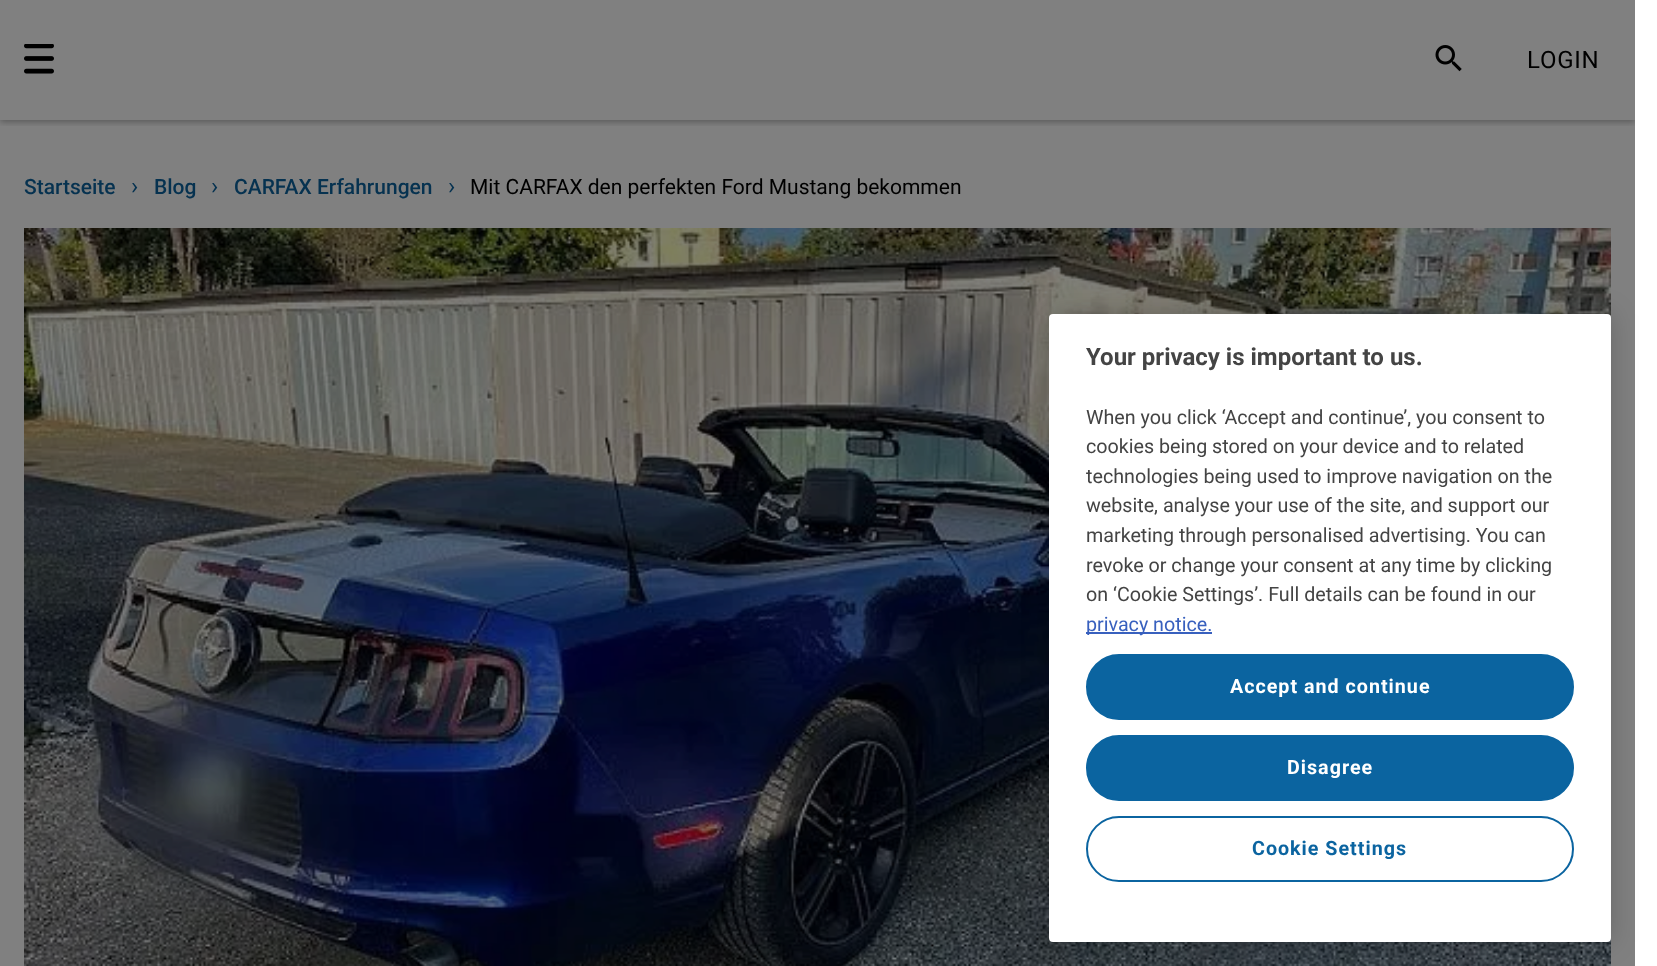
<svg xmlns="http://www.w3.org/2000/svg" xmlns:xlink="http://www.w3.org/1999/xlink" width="1657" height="966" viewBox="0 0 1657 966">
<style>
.cls-1{font:24px Roboto;letter-spacing:0.75px;fill:#000000}
.cls-2{font:500 21px Roboto;fill:#063250}
.cls-3{font:24px Roboto;letter-spacing:0.75px;fill:#063250}
.cls-4{font:21px Roboto;fill:#000000}
.cls-5{font:bold 24px Roboto;fill:#444444}
.cls-6{font:19.7px Roboto;fill:#444444}
.cls-7{font:19.7px Roboto;fill:#3860be}
.cls-8{font:bold 19.7px Roboto;letter-spacing:1px;fill:#ffffff}
.cls-9{font:bold 19.7px Roboto;letter-spacing:1px;fill:#0b64a0}
</style>
<defs>
<clipPath id="clip1"><rect x="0" y="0" width="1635" height="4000"/></clipPath>
<clipPath id="clip2"><rect x="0" y="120" width="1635" height="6"/></clipPath>
</defs>
<rect width="100%" height="100%" fill="#ffffff"/>
<rect fill="#808080" x="0" y="0" width="1635" height="966"/>
<g clip-path="url(#clip1)">
<g clip-path="url(#clip2)">
<rect fill="#000000" fill-opacity="0.3" filter="blur(3px)" x="0" y="2" width="1635" height="120"/>
</g>
</g>
<image xlink:href="image0.png" x="24" y="44" width="30" height="30"/>
<image xlink:href="image1.png" x="1435" y="45" width="27" height="27"/>
<image xlink:href="image2.png" x="24" y="228" width="1587" height="738"/>
<rect fill="#000000" fill-opacity="0.2" filter="blur(13.5px)" x="1049" y="314" width="562" height="628" rx="4"/>
<rect fill="#ffffff" x="1049" y="314" width="562" height="628" rx="4"/>
<rect fill="#3860be" x="1086" y="632" width="126" height="2"/>
<rect fill="#0b64a0" stroke="#0b64a0" stroke-width="2" x="1087" y="655" width="486" height="64" rx="32"/>
<rect fill="#0b64a0" stroke="#0b64a0" stroke-width="2" x="1087" y="736" width="486" height="64" rx="32"/>
<rect fill="none" stroke="#0b64a0" stroke-width="2" x="1087" y="817" width="486" height="64" rx="32"/>
<text class="cls-1" x="1527" y="68">LOGIN</text>
<text class="cls-2" x="24" y="194">Startseite</text>
<text class="cls-3" x="131" y="194">›</text>
<text class="cls-2" x="154" y="194">Blog</text>
<text class="cls-3" x="211" y="194">›</text>
<text class="cls-2" x="234" y="194">CARFAX Erfahrungen</text>
<text class="cls-3" x="448" y="194">›</text>
<text class="cls-4" x="470" y="194">Mit CARFAX den perfekten Ford Mustang bekommen</text>
<text class="cls-5" x="1086" y="365">Your privacy is important to us.</text>
<text class="cls-6"><tspan x="1086" y="424">When you click ‘Accept and continue’, you consent to</tspan><tspan x="1086" y="453">cookies being stored on your device and to related</tspan><tspan x="1086" y="483">technologies being used to improve navigation on the</tspan><tspan x="1086" y="512">website, analyse your use of the site, and support our</tspan><tspan x="1086" y="542">marketing through personalised advertising. You can</tspan><tspan x="1086" y="572">revoke or change your consent at any time by clicking</tspan><tspan x="1086" y="601">on ‘Cookie Settings’. Full details can be found in our</tspan></text>
<text class="cls-7" x="1086" y="631">privacy notice.</text>
<text class="cls-8" x="1230" y="693">Accept and continue</text>
<text class="cls-8" x="1287" y="774">Disagree</text>
<text class="cls-9" x="1252" y="855">Cookie Settings</text>
</svg>
